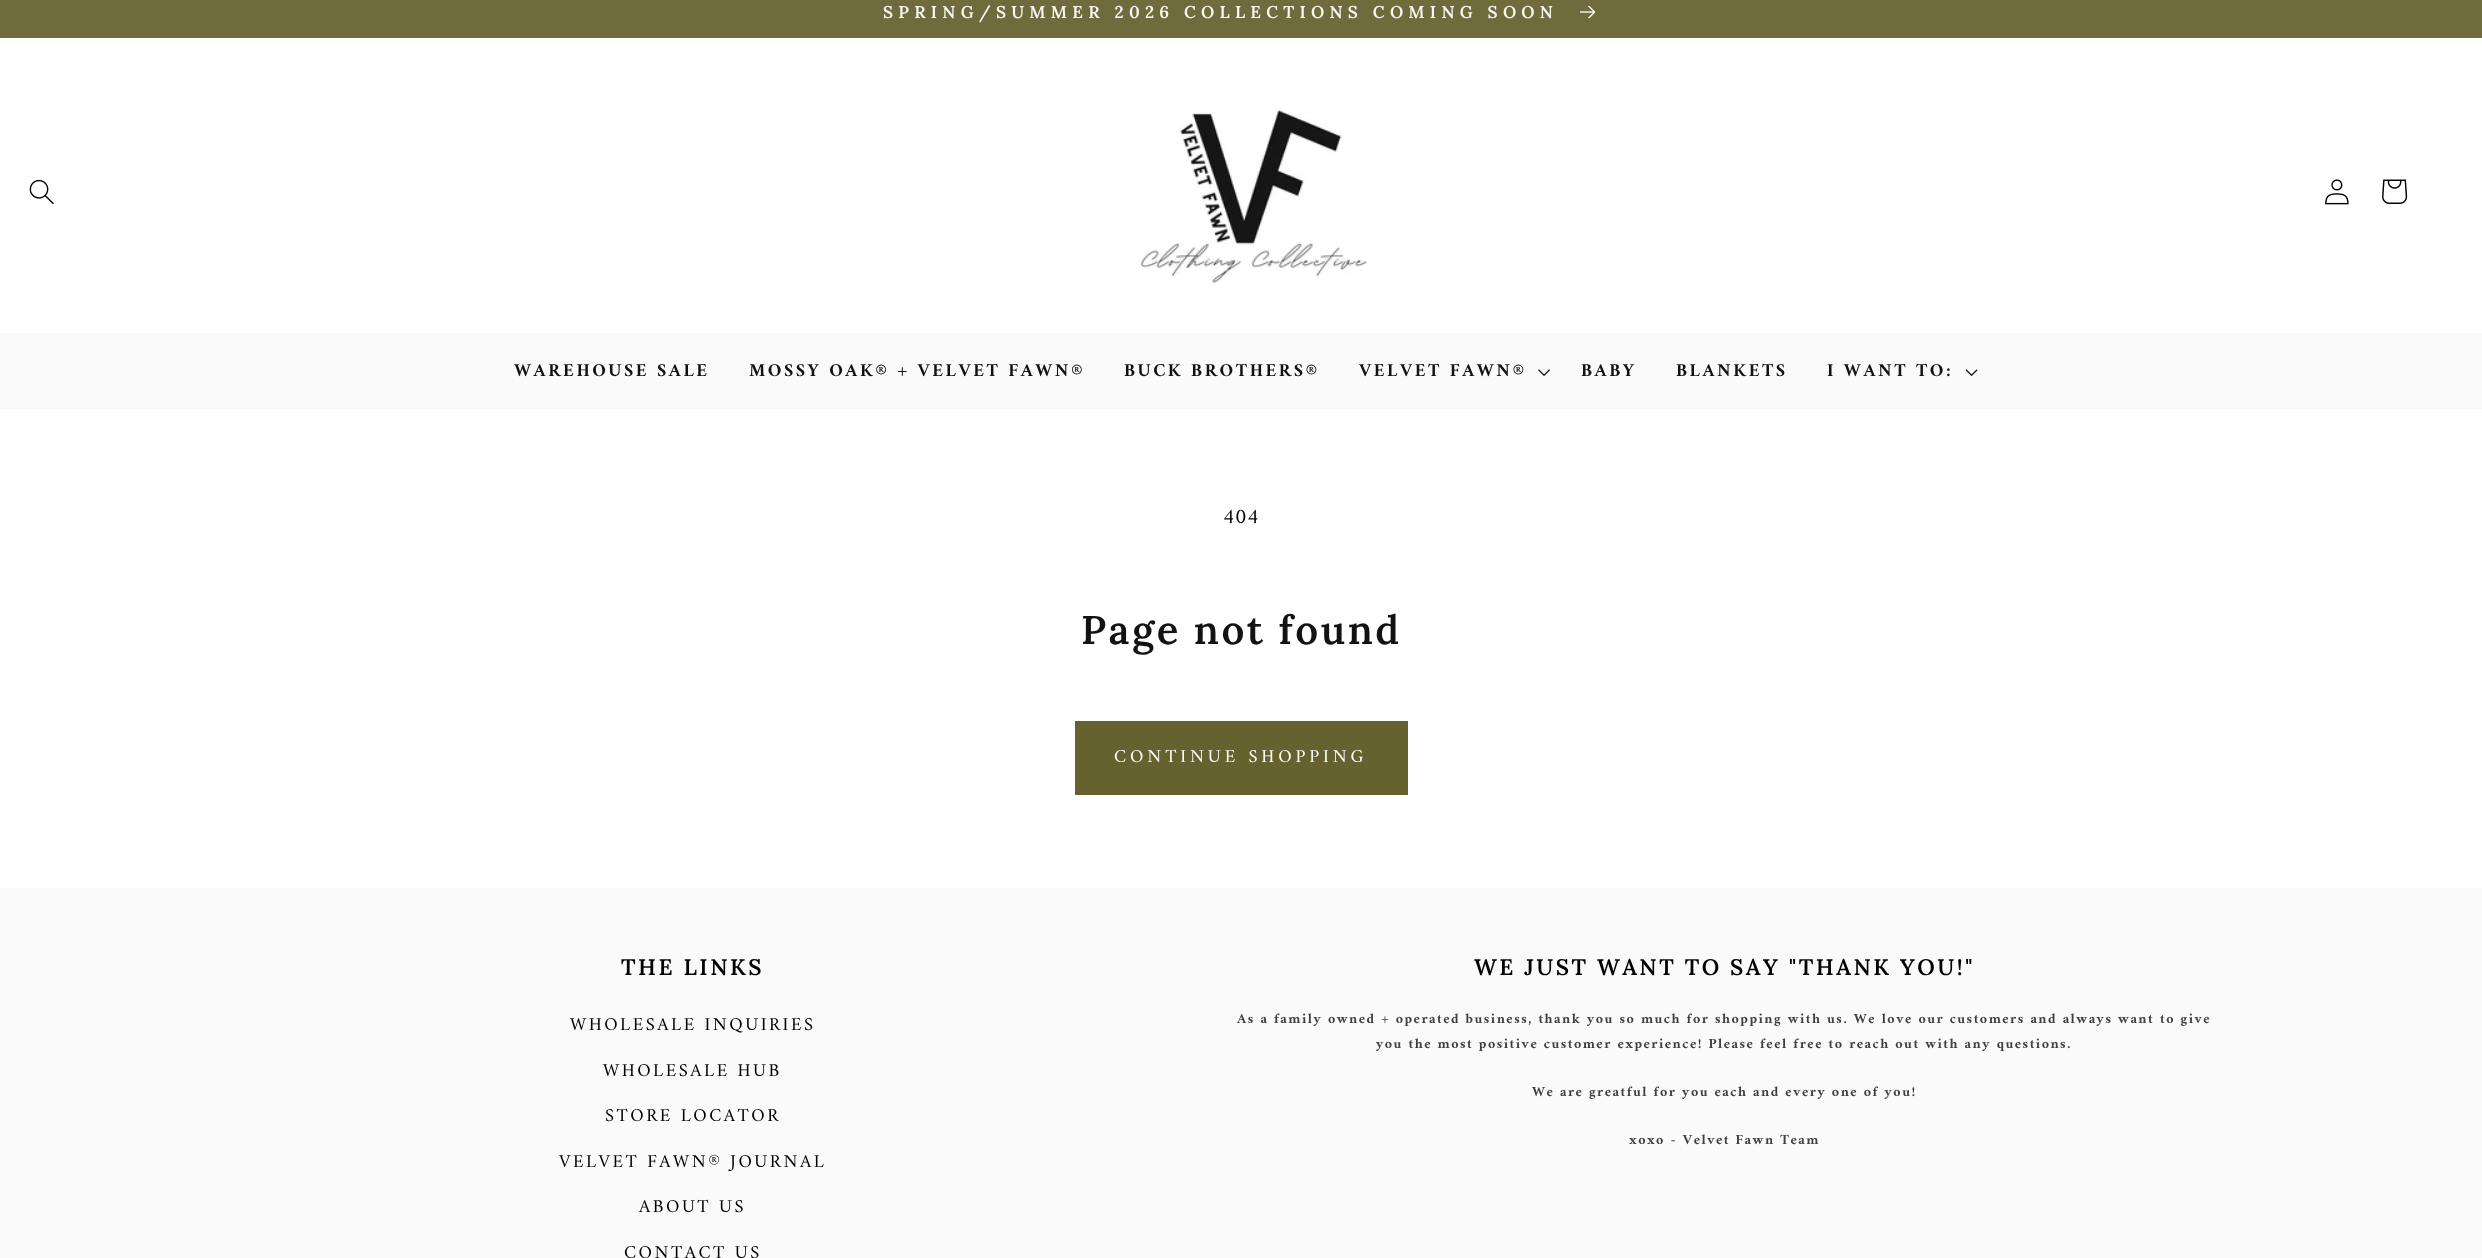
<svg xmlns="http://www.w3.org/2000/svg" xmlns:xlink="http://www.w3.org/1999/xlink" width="2482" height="1258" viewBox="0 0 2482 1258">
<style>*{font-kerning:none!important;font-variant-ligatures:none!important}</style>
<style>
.cls-1{font:600 17.05px Lora;letter-spacing:5.25px;fill:#f8f7f3}
.cls-2{font:bold 18.4px Amiri;letter-spacing:2.5px;fill:#121212}
.cls-3{font:21px Amiri;letter-spacing:1px;fill:#000000}
.cls-4{font:600 40px Lora;letter-spacing:2.5px;fill:#121212}
.cls-5{font:18.4px Amiri;letter-spacing:3.9px;fill:#ffffff}
.cls-6{font:600 22.5px Lora;letter-spacing:2.5px;fill:#000000}
.cls-7{font:18.4px Amiri;letter-spacing:2.5px;fill:#000000}
.cls-8{font:bold 14.07px Amiri;letter-spacing:1.5px;fill:#3f3f3f}
</style>
<rect width="100%" height="100%" fill="#ffffff"/>
<rect fill="#6f6b3c" x="0" y="0" width="2482" height="38"/>
<image xlink:href="image0.png" x="1580" y="5" width="16" height="14"/>
<image xlink:href="image1.png" x="29" y="179" width="25" height="26"/>
<image xlink:href="image2.png" x="1141" y="110" width="226" height="173"/>
<image xlink:href="image3.png" x="2325" y="179" width="24" height="26"/>
<image xlink:href="image4.png" x="2382" y="179" width="26" height="25"/>
<rect fill="#fafafa" x="0" y="333" width="2482" height="76"/>
<image xlink:href="image5.png" x="1538" y="369" width="12" height="7"/>
<image xlink:href="image6.png" x="1965" y="369" width="13" height="7"/>
<rect fill="#666230" x="1075" y="721" width="333" height="74"/>
<rect fill="#fafafa" x="0" y="888" width="2482" height="370"/>
<text class="cls-1" x="883" y="18">SPRING/SUMMER 2026 COLLECTIONS COMING SOON</text>
<text class="cls-2" x="514" y="376">WAREHOUSE SALE</text>
<text class="cls-2" x="749" y="376">MOSSY OAK® + VELVET FAWN®</text>
<text class="cls-2" x="1124" y="376">BUCK BROTHERS®</text>
<text class="cls-2" x="1359" y="376">VELVET FAWN®</text>
<text class="cls-2" x="1581" y="376">BABY</text>
<text class="cls-2" x="1676" y="376">BLANKETS</text>
<text class="cls-2" x="1827" y="376">I WANT TO:</text>
<text class="cls-3" x="1223" y="523">404</text>
<text class="cls-4" x="1081" y="644">Page not found</text>
<text class="cls-5" x="1114" y="762">CONTINUE SHOPPING</text>
<text class="cls-6" x="621" y="975">THE LINKS</text>
<text class="cls-7" x="570" y="1030">WHOLESALE INQUIRIES</text>
<text class="cls-7" x="603" y="1076">WHOLESALE HUB</text>
<text class="cls-7" x="605" y="1121">STORE LOCATOR</text>
<text class="cls-7" x="559" y="1167">VELVET FAWN® JOURNAL</text>
<text class="cls-7" x="639" y="1212">ABOUT US</text>
<text class="cls-7" x="624" y="1258">CONTACT US</text>
<text class="cls-6" x="1474" y="975">WE JUST WANT TO SAY "THANK YOU!"</text>
<text class="cls-8" x="1237" y="1023">As a family owned + operated business, thank you so much for shopping with us. We love our customers and always want</text>
<text class="cls-8" x="2160" y="1023">to give</text>
<text class="cls-8" x="1376" y="1048">you the most positive customer experience! Please feel free to reach out with any questions.</text>
<text class="cls-8" x="1532" y="1096">We are greatful for you each and every one of you!</text>
<text class="cls-8" x="1629" y="1144">xoxo - Velvet Fawn Team</text>
</svg>
